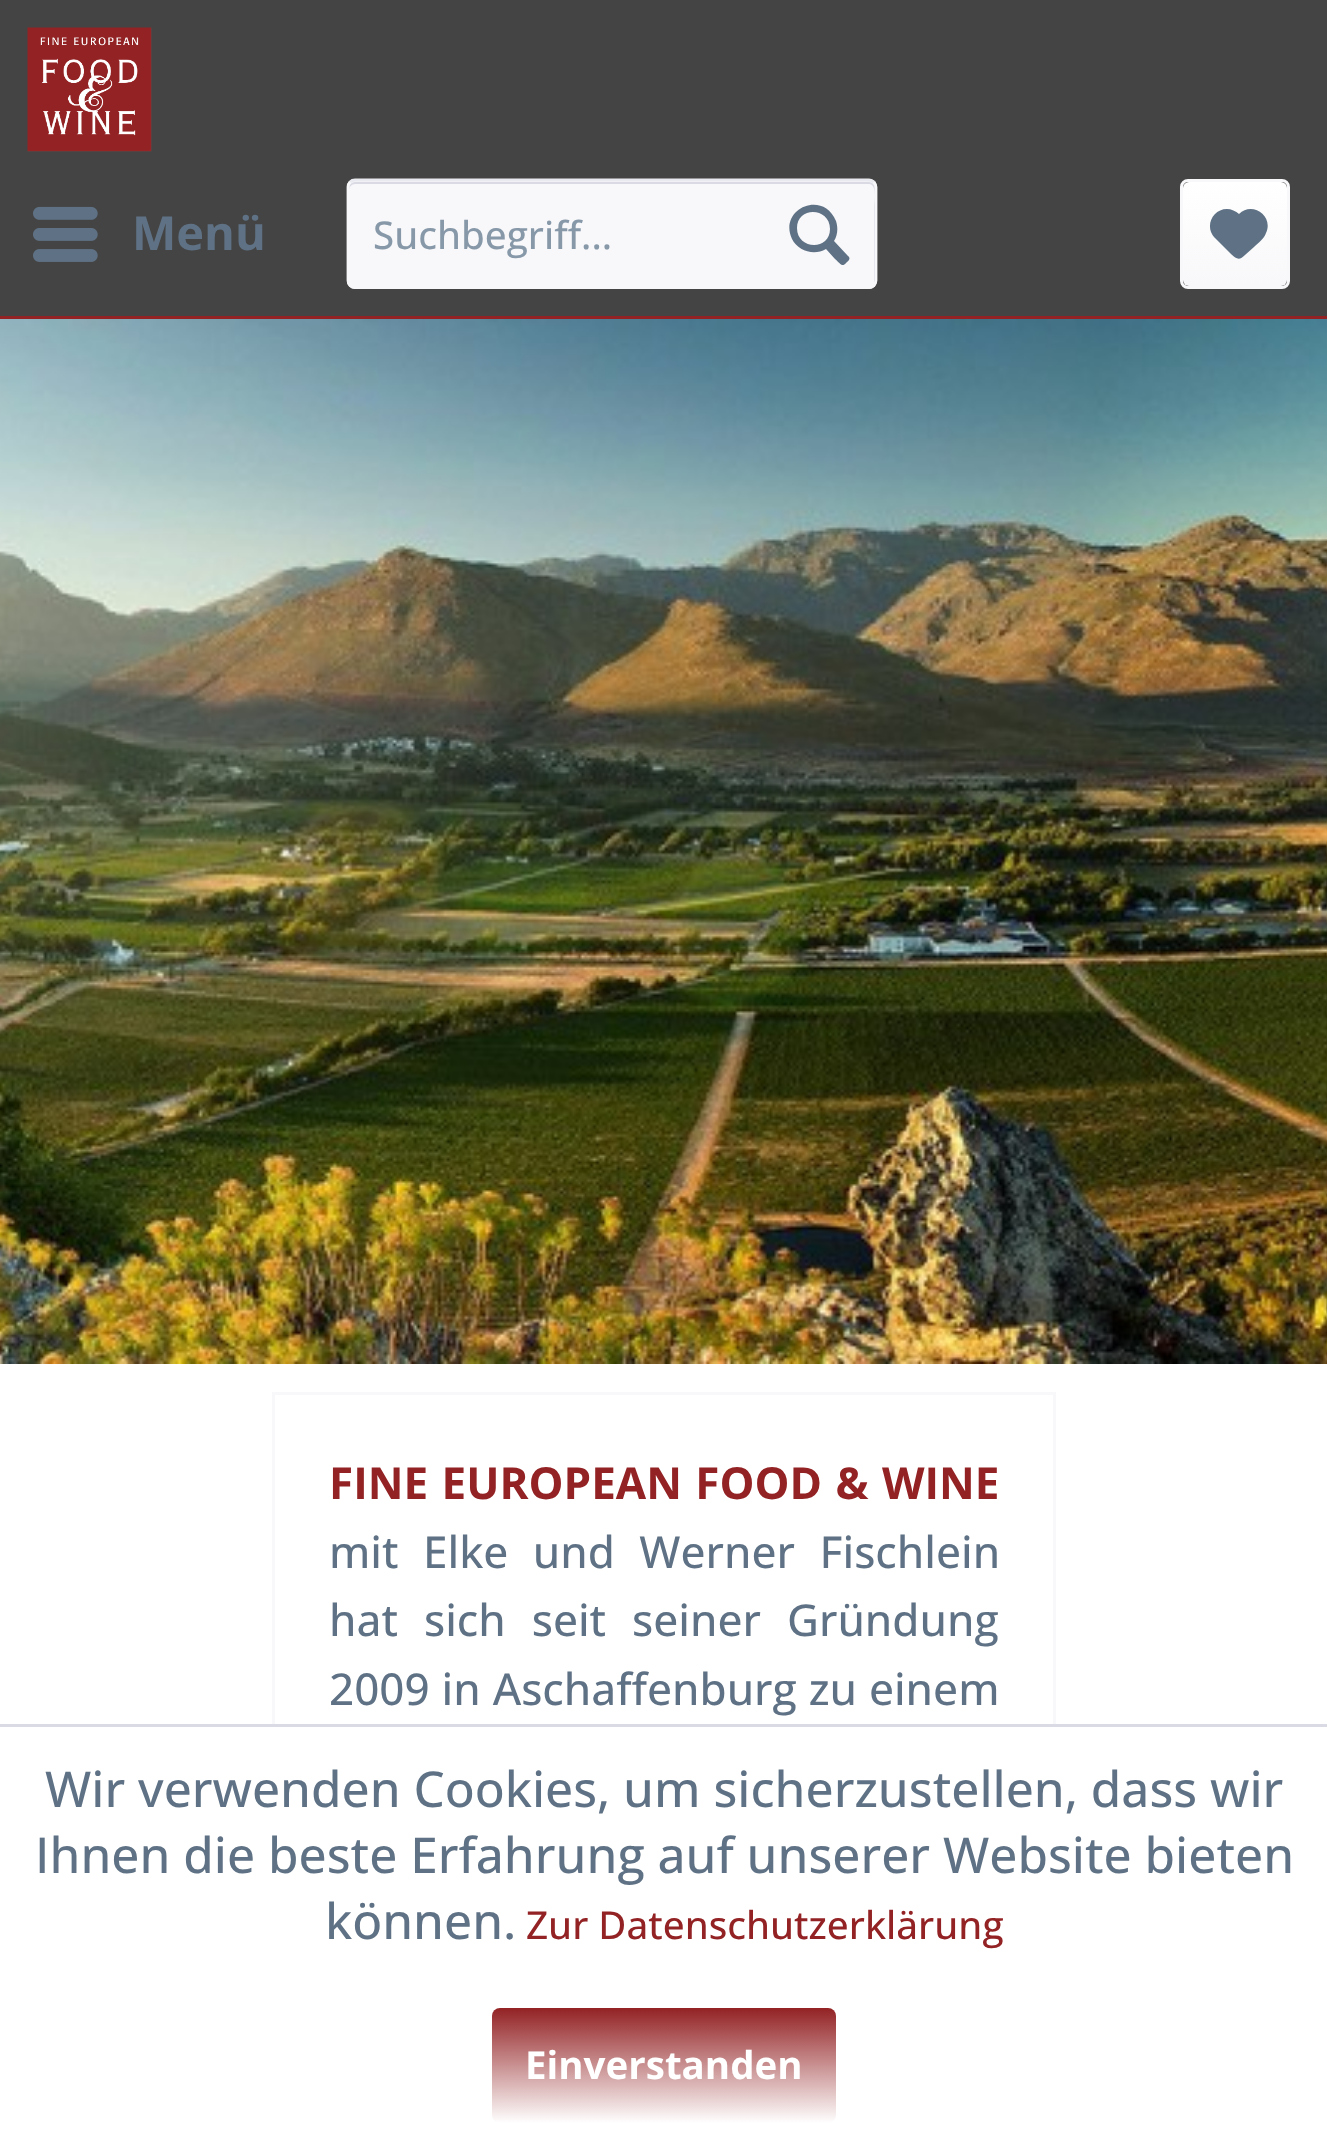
<svg xmlns="http://www.w3.org/2000/svg" xmlns:xlink="http://www.w3.org/1999/xlink" width="1327" height="2148" viewBox="0 0 1327 2148">
<style>
.cls-1{font:bold 47px Open Sans;fill:#5f7285}
.cls-2{font:500 38.5px Open Sans;fill:#8798a9}
.cls-3{font:bold 44px Open Sans;fill:#932224}
.cls-4{font:500 44px Open Sans;fill:#5f7285}
.cls-5{font:500 49.5px Open Sans;fill:#5f7285}
.cls-6{font:500 38.5px Open Sans;fill:#932224}
.cls-7{font:bold 38.5px Open Sans;fill:#ffffff}
</style>
<defs>
<linearGradient id="g1" gradientUnits="userSpaceOnUse" x1="1235" y1="182" x2="1235" y2="286"><stop offset="0" stop-color="#ffffff"/><stop offset="1" stop-color="#f8f8fa"/></linearGradient>
<linearGradient id="g2" gradientUnits="userSpaceOnUse" x1="664" y1="2008" x2="664" y2="2123"><stop offset="0" stop-color="#932224"/><stop offset="1" stop-color="#ffffff"/></linearGradient>
</defs>
<rect width="100%" height="100%" fill="#ffffff"/>
<rect fill="#444444" x="0" y="0" width="1327" height="316"/>
<rect fill="#932224" x="0" y="316" width="1327" height="3"/>
<image xlink:href="image0.png" x="27" y="27" width="125" height="125"/>
<image xlink:href="image1.png" x="33" y="206" width="65" height="56"/>
<rect fill="#f8f8fa" x="347" y="179" width="530" height="110" rx="8"/>
<path fill="#dadae5" d="M355 184H869C878 184 874 205 874 206V283C875 282 875 281 875 280V188C875 185 872 182 869 182H355C352 182 349 185 349 188V190C349 187 352 184 355 184Z"/>
<path fill="none" stroke="#e9e9f0" stroke-width="2.8" d="M350 182C351 181 353 180 355 180H869C871 180 872.5 181 874 182"/>
<path fill="none" stroke="#f8f8fa" stroke-width="2.8" d="M874 182C875 183.5 876 185 876 187V280.5C876 282.5 875 284 874 285.5C872.5 286.5 871 287.5 869 287.5H355C353 287.5 351 286.5 350 285.5C348.5 284 348 282.5 348 280.5V187C348 185 348.5 183.5 350 182"/>
<path fill="#5f7285" d="M848 256L834 241C838 235 838 227 836 221C823 189 778 209 792 239C798 251 814 256 826 249L835 259C840 263 842 268 846 263C849 261 851 258 848 256ZM797 228C797 206 830 207 830 229C830 251 797 250 797 228Z"/>
<rect fill="url(#g1)" x="1183" y="182" width="104" height="104" rx="6"/>
<rect fill="none" stroke="#f8f8fa" stroke-width="3" x="1181.5" y="180.5" width="107" height="107" rx="6.5"/>
<path fill="#5f7285" d="M1227 209C1215 209 1207 221 1211 232C1212 234 1213 236 1214 237L1231 254C1237 260 1240 260 1245 255L1254 247C1258 243 1264 239 1266 233C1274 216 1252 201 1239 214C1236 211 1231 209 1227 209Z"/>
<image xlink:href="image2.png" x="0" y="319" width="1327" height="1045"/>
<rect fill="none" stroke="#f8f8fa" stroke-width="3" x="273.5" y="1393.5" width="781" height="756"/>
<rect fill="#ffffff" x="272" y="1727" width="784" height="421"/>
<rect fill="#dadae5" x="0" y="1724" width="1327" height="3"/>
<rect fill="url(#g2)" x="492" y="2008" width="344" height="115" rx="8"/>
<text class="cls-1" x="132" y="250">Menü</text>
<text class="cls-2" x="373" y="249">Suchbegriff...</text>
<text class="cls-3" x="329" y="1499" word-spacing="2">FINE EUROPEAN FOOD &amp; WINE</text>
<text class="cls-4"><tspan x="329" y="1568" word-spacing="13">mit Elke und Werner Fischlein</tspan><tspan x="329" y="1636" word-spacing="14.5">hat sich seit seiner Gründung</tspan><tspan x="329" y="1705" word-spacing="0.5">2009 in Aschaffenburg zu einem</tspan></text>
<text class="cls-5" x="45" y="1807">Wir verwenden Cookies, um sicherzustellen, dass wir</text>
<text class="cls-5" x="35" y="1873">Ihnen die beste Erfahrung auf unserer Website bieten</text>
<text class="cls-5" x="325" y="1939">können.</text>
<text class="cls-6" x="526" y="1939">Zur Datenschutzerklärung</text>
<text class="cls-7" x="525" y="2079">Einverstanden</text>
</svg>
